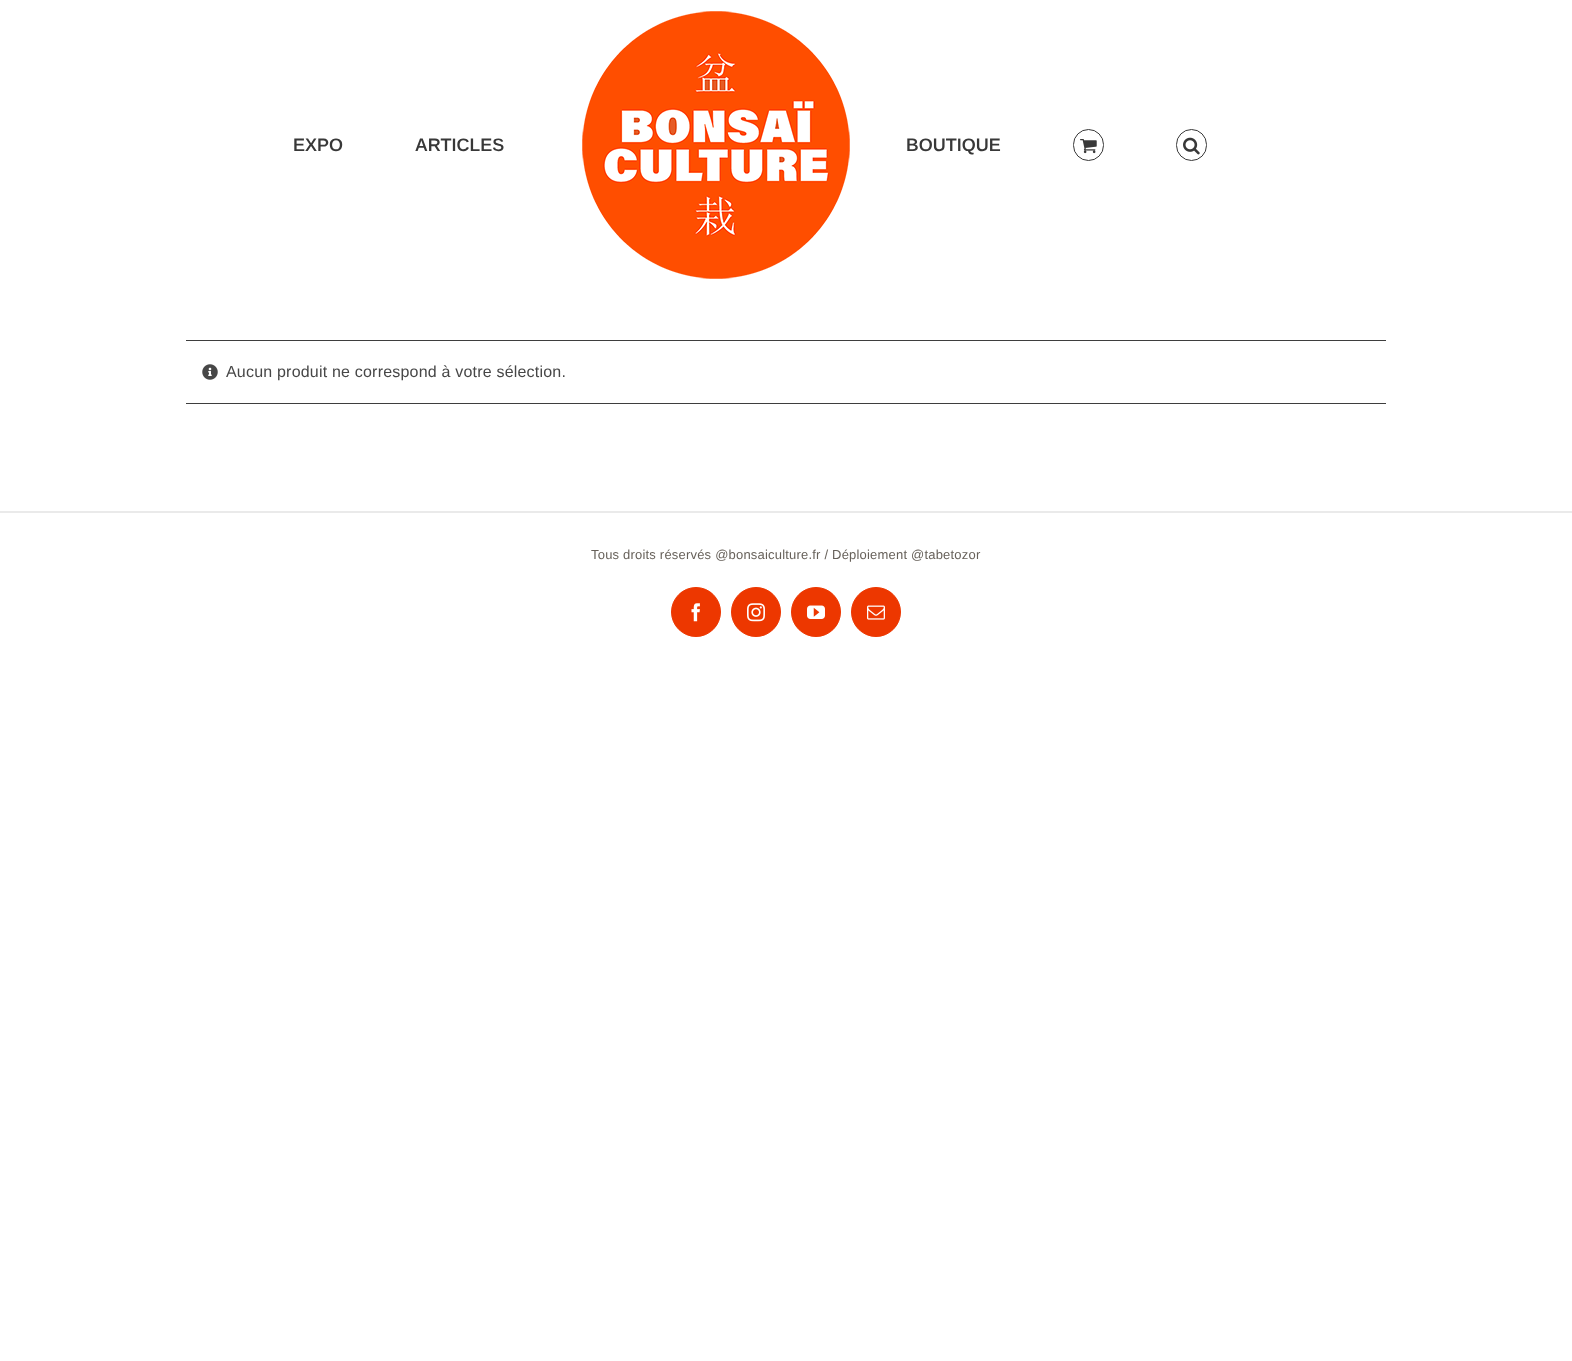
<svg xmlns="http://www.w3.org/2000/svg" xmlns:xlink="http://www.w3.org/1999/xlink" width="1572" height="1361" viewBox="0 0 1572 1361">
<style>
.cls-1{font:600 18px Arimo;fill:#383838}
.cls-2{font:16px Arimo;letter-spacing:0.2px;fill:#474747}
.cls-3{font:13px Arimo;letter-spacing:0.2px;fill:#67615a}
</style>
<rect width="100%" height="100%" fill="#ffffff"/>
<image xlink:href="image0.png" x="582" y="11" width="268" height="268"/>
<rect fill="none" stroke="#383838" x="1073.5" y="129.5" width="30" height="31" rx="15"/>
<image xlink:href="image1.png" x="1080" y="139" width="17" height="15"/>
<rect fill="none" stroke="#383838" x="1176.5" y="129.5" width="30" height="31" rx="15"/>
<image xlink:href="image2.png" x="1183" y="137" width="17" height="18"/>
<rect fill="#3e3e3e" x="186" y="340" width="1200" height="1"/>
<rect fill="#3e3e3e" x="186" y="403" width="1200" height="1"/>
<image xlink:href="image3.png" x="202" y="364" width="16" height="16"/>
<rect fill="#eaeaea" x="0" y="511" width="1572" height="2"/>
<circle fill="#ed3700" stroke="#ed3700" cx="696" cy="612" r="24.5"/>
<image xlink:href="image4.png" x="691" y="603" width="9" height="19"/>
<circle fill="#ed3700" stroke="#ed3700" cx="756" cy="612" r="24.5"/>
<image xlink:href="image5.png" x="747" y="603" width="18" height="19"/>
<circle fill="#ed3700" stroke="#ed3700" cx="816" cy="612" r="24.5"/>
<image xlink:href="image6.png" x="807" y="605" width="18" height="14"/>
<circle fill="#ed3700" stroke="#ed3700" cx="876" cy="612" r="24.5"/>
<image xlink:href="image7.png" x="867" y="605" width="18" height="15"/>
<text class="cls-1" x="293" y="151">EXPO</text>
<text class="cls-1" x="415" y="151">ARTICLES</text>
<text class="cls-1" x="906" y="151">BOUTIQUE</text>
<text class="cls-2" x="226" y="377">Aucun produit ne correspond à votre sélection.</text>
<text class="cls-3" x="591" y="559">Tous droits réservés @bonsaiculture.fr / Déploiement @tabetozor</text>
</svg>
